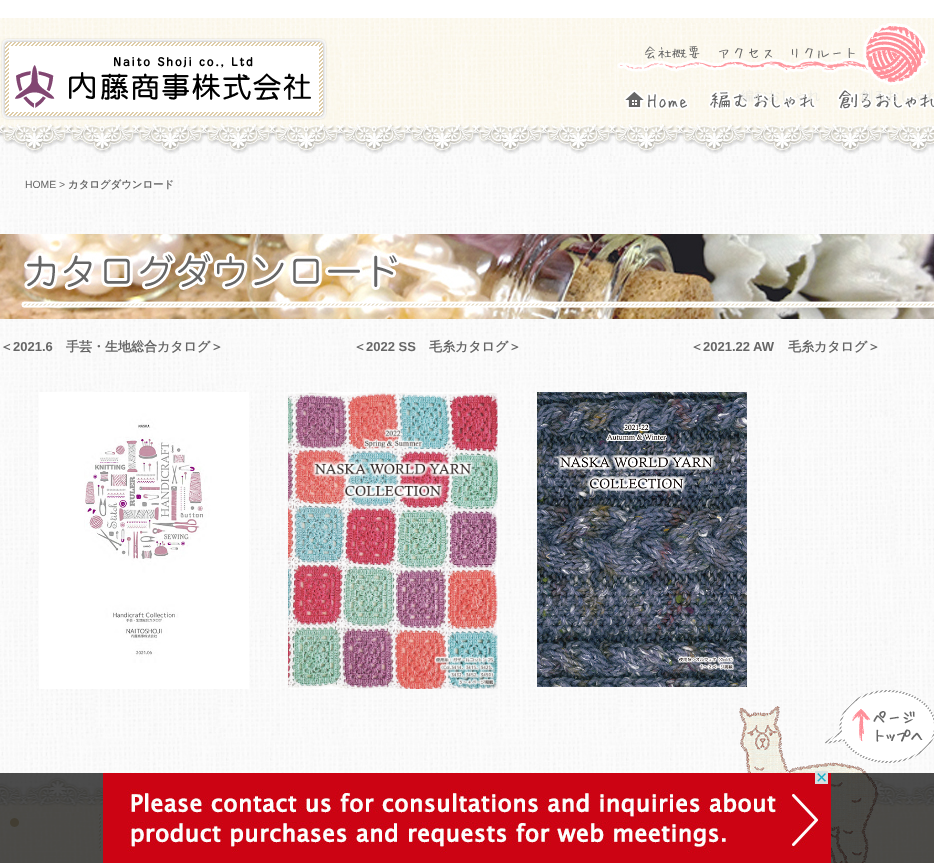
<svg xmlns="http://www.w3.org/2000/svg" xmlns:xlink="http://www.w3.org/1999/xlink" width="934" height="863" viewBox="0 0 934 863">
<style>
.cls-1{font:500 13px WenQuanYi Zen Hei;fill:#ebeae4}
.cls-2{font:10.4px Liberation Sans;fill:#666666}
.cls-3{font:bold 10.4px WenQuanYi Zen Hei;fill:#666666}
.cls-4{font:bold 13px WenQuanYi Zen Hei;fill:#666666}
.cls-5{font:bold 13px Liberation Sans;fill:#666666}
</style>
<rect width="100%" height="100%" fill="#ffffff"/>
<image xlink:href="image0.png" x="0" y="156" width="934" height="620"/>
<image xlink:href="image1.png" x="0" y="18" width="934" height="138"/>
<image xlink:href="image2.png" x="1" y="38" width="326" height="82"/>
<image xlink:href="image3.png" x="617" y="23" width="313" height="64"/>
<image xlink:href="image4.png" x="645" y="46" width="55" height="13"/>
<image xlink:href="image5.png" x="719" y="48" width="54" height="11"/>
<image xlink:href="image6.png" x="792" y="48" width="63" height="11"/>
<image xlink:href="image7.png" x="623" y="90" width="66" height="20"/>
<image xlink:href="image8.png" x="708" y="90" width="108" height="20"/>
<image xlink:href="image9.png" x="837" y="88" width="97" height="23"/>
<image xlink:href="image10.png" x="0" y="234" width="934" height="85"/>
<image xlink:href="image11.png" x="39" y="392" width="210" height="297"/>
<image xlink:href="image12.png" x="288" y="392" width="210" height="297"/>
<image xlink:href="image13.png" x="537" y="392" width="210" height="295"/>
<image xlink:href="image14.png" x="0" y="776" width="934" height="87"/>
<image xlink:href="image15.png" x="10" y="818" width="9" height="9"/>
<image xlink:href="image16.png" x="99" y="814" width="2" height="37"/>
<image xlink:href="image17.png" x="739" y="690" width="195" height="173"/>
<rect fill="#000000" fill-opacity="0.7" x="0" y="773" width="934" height="90"/>
<image xlink:href="image19.png" x="103" y="773" width="728" height="90"/>
<image xlink:href="image18.png" x="815" y="771" width="13" height="13"/>
<text class="cls-1" x="741" y="100">編むおしゃれ</text>
<text class="cls-1" x="860" y="100">創るおしゃれ</text>
<text class="cls-2" x="25" y="188">HOME &gt;</text>
<text class="cls-3" x="68" y="188">カタログダウンロード</text>
<text class="cls-4" x="0" y="351">＜</text>
<text class="cls-5" x="13" y="351">2021.6</text>
<text class="cls-4" x="66" y="351">手芸・生地総合カタログ＞　　　　　　　　　　＜</text>
<text class="cls-5" x="366" y="351">2022 SS</text>
<text class="cls-4" x="429" y="351">毛糸カタログ＞　　　　　　　　　　　　　＜</text>
<text class="cls-5" x="703" y="351">2021.22 AW</text>
<text class="cls-4" x="788" y="351">毛糸カタログ＞</text>
</svg>
